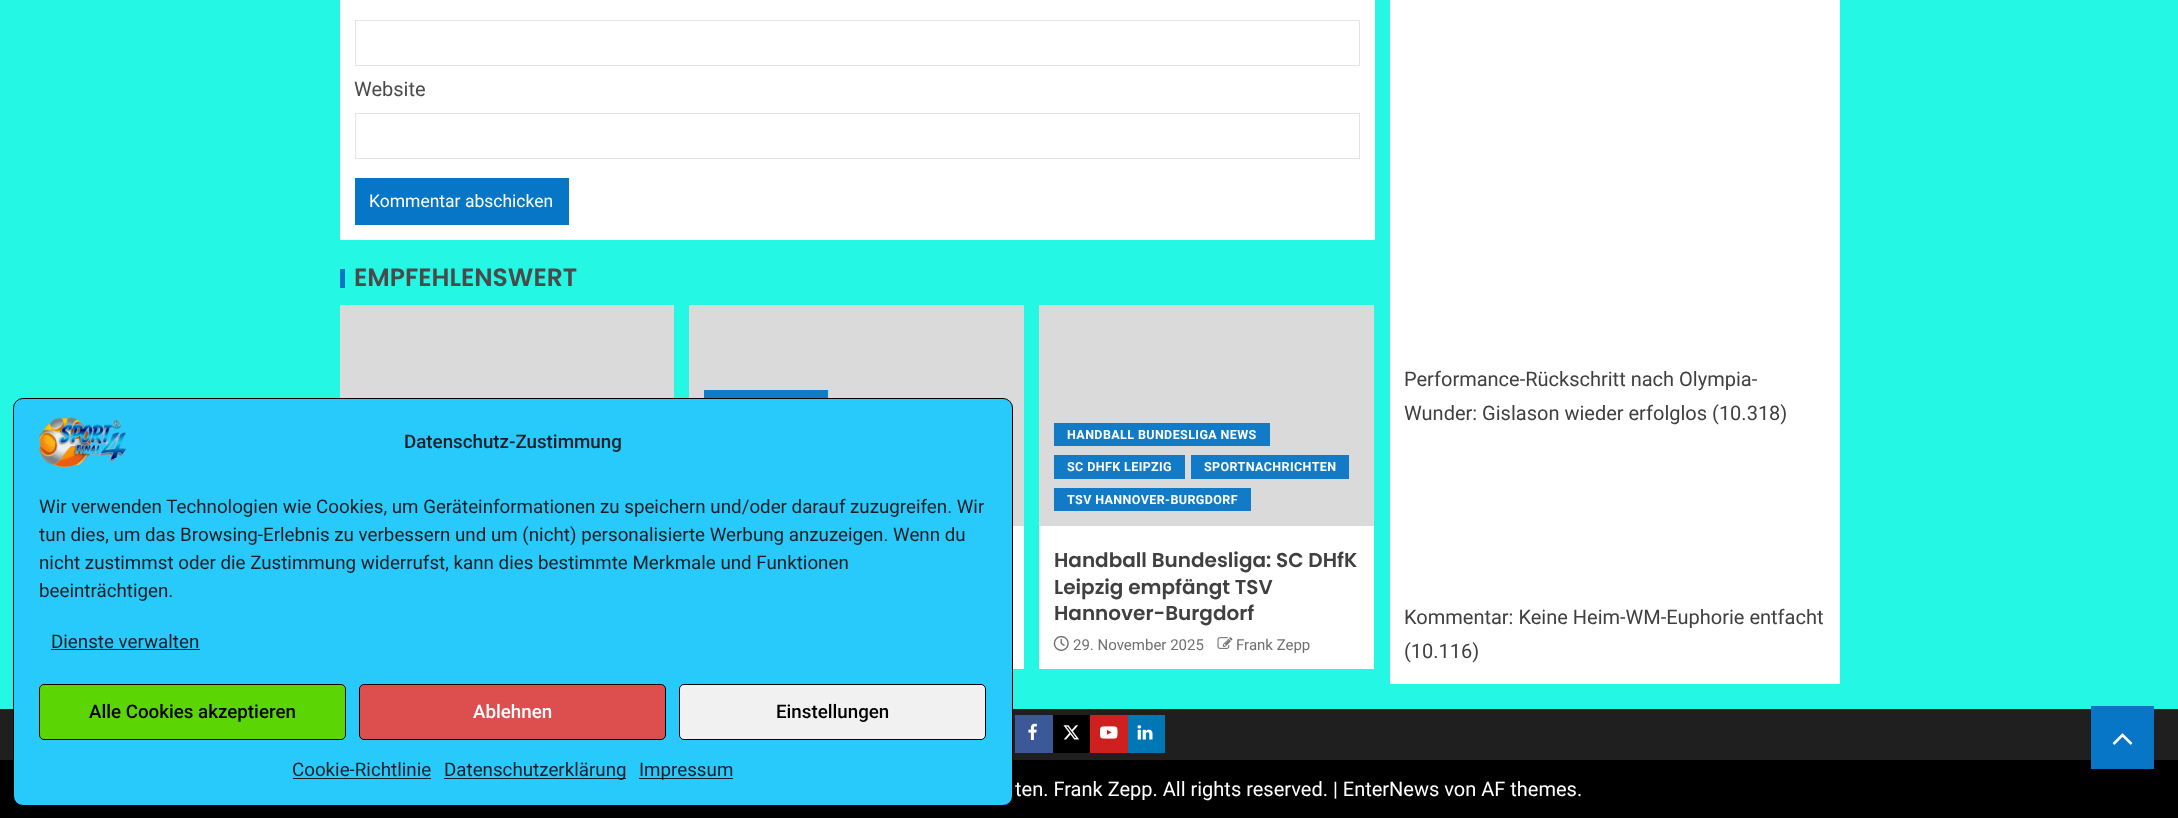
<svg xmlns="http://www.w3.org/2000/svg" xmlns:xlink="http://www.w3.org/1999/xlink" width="2178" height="818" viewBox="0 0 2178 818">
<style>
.cls-1{font:20px Roboto;fill:#4a4a4a}
.cls-2{font:17.5px Roboto;fill:#ffffff}
.cls-3{font:600 25px Poppins;fill:#4a4a4a}
.cls-4{font:bold 12.5px Roboto;letter-spacing:0.4px;fill:#ffffff}
.cls-5{font:600 20px Poppins;fill:#404040}
.cls-6{font:15px Roboto;fill:#707070}
.cls-7{font:20px Roboto;fill:#404040}
.cls-8{font:20px Roboto;fill:#ffffff}
.cls-9{font:500 18.75px Roboto;fill:#191e23}
.cls-10{font:18.75px Roboto;fill:#191e23}
.cls-11{font:500 18.75px Roboto;fill:#000000}
.cls-12{font:500 18.75px Roboto;fill:#ffffff}
</style>
<rect width="100%" height="100%" fill="#25f7e5"/>
<rect fill="#ffffff" x="340" y="0" width="1035" height="240"/>
<rect fill="none" stroke="#e4e4e4" x="355.5" y="20.5" width="1004" height="45"/>
<rect fill="none" stroke="#e4e4e4" x="355.5" y="113.5" width="1004" height="45"/>
<rect fill="#0776c6" x="355" y="178" width="214" height="47"/>
<rect fill="#0776c6" x="340" y="269" width="5" height="19"/>
<rect fill="#dadada" x="340" y="305" width="334" height="93"/>
<rect fill="#dadada" x="689" y="305" width="335" height="221"/>
<rect fill="#127bc7" x="704" y="390" width="124" height="8"/>
<rect fill="#ffffff" x="1013" y="526" width="11" height="143"/>
<rect fill="#dadada" x="1039" y="305" width="335" height="221"/>
<rect fill="#127bc7" x="1054" y="423" width="216" height="23"/>
<rect fill="#127bc7" x="1054" y="455" width="131" height="24"/>
<rect fill="#127bc7" x="1191" y="455" width="158" height="24"/>
<rect fill="#127bc7" x="1054" y="488" width="197" height="23"/>
<rect fill="#ffffff" x="1039" y="526" width="335" height="143"/>
<image xlink:href="image0.png" x="1053" y="635" width="16" height="16"/>
<image xlink:href="image1.png" x="1217" y="637" width="16" height="12"/>
<rect fill="#ffffff" x="1390" y="0" width="450" height="684"/>
<rect fill="#1f1f1f" x="0" y="709" width="2178" height="51"/>
<rect fill="#3b5999" x="1015" y="715" width="38" height="38"/>
<image xlink:href="image2.png" x="1028" y="723" width="9" height="17"/>
<rect fill="#000000" x="1053" y="715" width="37" height="38"/>
<image xlink:href="image3.png" x="1063" y="725" width="16" height="15"/>
<rect fill="#cd201f" x="1090" y="715" width="38" height="38"/>
<image xlink:href="image4.png" x="1100" y="726" width="18" height="13"/>
<rect fill="#0077b5" x="1128" y="715" width="37" height="38"/>
<image xlink:href="image5.png" x="1137" y="725" width="16" height="15"/>
<rect fill="#000000" x="0" y="760" width="2178" height="58"/>
<rect fill="#28cafc" stroke="#000000" x="13.5" y="398.5" width="999" height="407" rx="9.5"/>
<image xlink:href="image6.png" x="38" y="417" width="89" height="51"/>
<rect fill="#191e23" x="51" y="649" width="149" height="1"/>
<rect fill="#5bd604" stroke="#000000" x="39.5" y="684.5" width="306" height="55" rx="4.5"/>
<rect fill="#dd4f4f" stroke="#000000" x="359.5" y="684.5" width="306" height="55" rx="4.5"/>
<rect fill="#f1f1f1" stroke="#000000" x="679.5" y="684.5" width="306" height="55" rx="4.5"/>
<rect fill="#191e23" x="293" y="778" width="138" height="1"/>
<rect fill="#191e23" x="444" y="778" width="182" height="1"/>
<rect fill="#191e23" x="639" y="778" width="94" height="1"/>
<rect fill="#0776c6" x="2091" y="706" width="63" height="63"/>
<image xlink:href="image7.png" x="2112" y="733" width="21" height="12"/>
<text class="cls-1" x="354" y="96">Website</text>
<text class="cls-2" x="369" y="207">Kommentar abschicken</text>
<text class="cls-3" x="354" y="286">EMPFEHLENSWERT</text>
<text class="cls-4" x="1067" y="439">HANDBALL BUNDESLIGA NEWS</text>
<text class="cls-4" x="1067" y="471">SC DHFK LEIPZIG</text>
<text class="cls-4" x="1204" y="471">SPORTNACHRICHTEN</text>
<text class="cls-4" x="1067" y="504">TSV HANNOVER-BURGDORF</text>
<text class="cls-5"><tspan x="1054" y="567">Handball Bundesliga: SC DHfK</tspan><tspan x="1054" y="594">Leipzig empfängt TSV</tspan><tspan x="1054" y="620">Hannover-Burgdorf</tspan></text>
<text class="cls-6" x="1073" y="650">29. November 2025</text>
<text class="cls-6" x="1236" y="650">Frank Zepp</text>
<text class="cls-7"><tspan x="1404" y="386">Performance-Rückschritt nach Olympia-</tspan><tspan x="1404" y="420">Wunder: Gislason wieder erfolglos (10.318)</tspan></text>
<text class="cls-7"><tspan x="1404" y="624">Kommentar: Keine Heim-WM-Euphorie entfacht</tspan><tspan x="1404" y="658">(10.116)</tspan></text>
<text class="cls-8" x="1015" y="796">ten. Frank Zepp. All rights reserved. | EnterNews von AF themes.</text>
<text class="cls-9" x="404" y="448">Datenschutz-Zustimmung</text>
<text class="cls-10"><tspan x="39" y="513">Wir verwenden Technologien wie Cookies, um Geräteinformationen zu speichern und/oder darauf zuzugreifen. Wir</tspan><tspan x="39" y="541">tun dies, um das Browsing-Erlebnis zu verbessern und um (nicht) personalisierte Werbung anzuzeigen. Wenn du</tspan><tspan x="39" y="569">nicht zustimmst oder die Zustimmung widerrufst, kann dies bestimmte Merkmale und Funktionen</tspan><tspan x="39" y="597">beeinträchtigen.</tspan></text>
<text class="cls-10" x="51" y="648">Dienste verwalten</text>
<text class="cls-11" x="89" y="718">Alle Cookies akzeptieren</text>
<text class="cls-12" x="473" y="718">Ablehnen</text>
<text class="cls-11" x="776" y="718">Einstellungen</text>
<text class="cls-10" x="292" y="776">Cookie-Richtlinie</text>
<text class="cls-10" x="444" y="776">Datenschutzerklärung</text>
<text class="cls-10" x="639" y="776">Impressum</text>
</svg>
